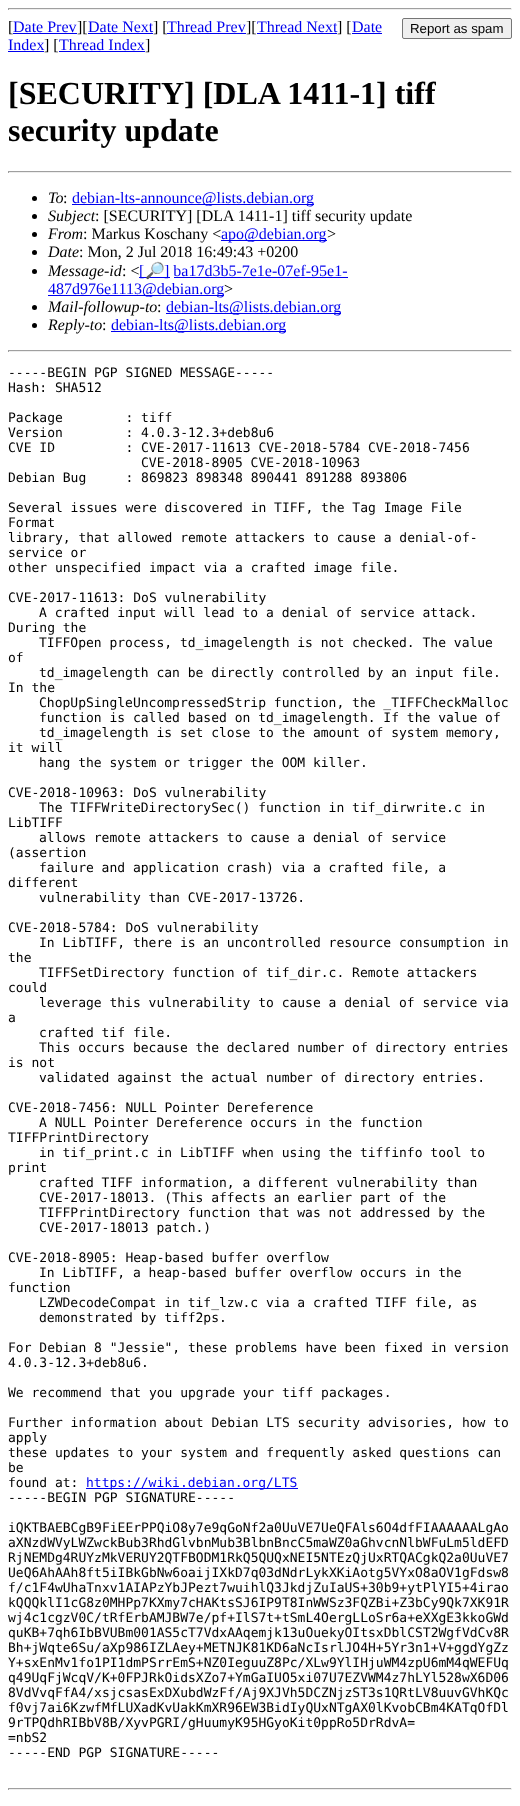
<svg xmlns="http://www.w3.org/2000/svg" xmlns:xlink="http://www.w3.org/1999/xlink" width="520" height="1806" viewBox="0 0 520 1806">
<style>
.cls-1{font:16px Liberation Serif;fill:#000000}
.cls-2{font:16px Liberation Serif;fill:#0000ee}
.cls-3{font:13.25px Liberation Sans;fill:#000000}
.cls-4{font:bold 32px Liberation Serif;fill:#000000}
.cls-5{font:italic 16px Liberation Serif;fill:#000000}
.cls-6{font:16px Noto Color Emoji;fill:#0000ee}
.cls-7{font:13px DejaVu Sans Mono;fill:#000000}
.cls-8{font:13px DejaVu Sans Mono;fill:#0000ee}
</style>
<rect width="100%" height="100%" fill="#ffffff"/>
<rect fill="#9f9f9f" x="8" y="8" width="504" height="1"/>
<rect fill="#eeeeee" x="511" y="8" width="1" height="2"/>
<rect fill="#eeeeee" x="8" y="9" width="504" height="1"/>
<rect fill="#9f9f9f" x="8" y="8" width="1" height="2"/>
<rect fill="#0000ee" x="13" y="33" width="64" height="1"/>
<rect fill="#0000ee" x="88" y="33" width="65" height="1"/>
<rect fill="#0000ee" x="167" y="33" width="79" height="1"/>
<rect fill="#0000ee" x="257" y="33" width="80" height="1"/>
<rect fill="#0000ee" x="352" y="33" width="30" height="1"/>
<rect fill="#efefef" stroke="#767676" x="402.5" y="18.5" width="109" height="20" rx="1.5"/>
<rect fill="#0000ee" x="8" y="51" width="36" height="1"/>
<rect fill="#0000ee" x="59" y="51" width="86" height="1"/>
<rect fill="#9f9f9f" x="8" y="171" width="504" height="1"/>
<rect fill="#eeeeee" x="511" y="171" width="1" height="2"/>
<rect fill="#eeeeee" x="8" y="172" width="504" height="1"/>
<rect fill="#9f9f9f" x="8" y="171" width="1" height="2"/>
<circle fill="#000000" cx="34.5" cy="198.5" r="2.5"/>
<rect fill="#0000ee" x="72" y="204" width="242" height="1"/>
<circle fill="#000000" cx="34.5" cy="216.5" r="2.5"/>
<circle fill="#000000" cx="34.5" cy="234.5" r="2.5"/>
<rect fill="#0000ee" x="221" y="240" width="106" height="1"/>
<circle fill="#000000" cx="34.5" cy="252.5" r="2.5"/>
<circle fill="#000000" cx="34.5" cy="271.5" r="2.5"/>
<rect fill="#0000ee" x="139" y="277" width="31" height="1"/>
<rect fill="#0000ee" x="174" y="277" width="174" height="1"/>
<rect fill="#0000ee" x="48" y="295" width="176" height="1"/>
<circle fill="#000000" cx="34.5" cy="307.5" r="2.5"/>
<rect fill="#0000ee" x="166" y="313" width="175" height="1"/>
<circle fill="#000000" cx="34.5" cy="325.5" r="2.5"/>
<rect fill="#0000ee" x="111" y="331" width="175" height="1"/>
<rect fill="#9f9f9f" x="8" y="350" width="504" height="1"/>
<rect fill="#eeeeee" x="511" y="350" width="1" height="2"/>
<rect fill="#eeeeee" x="8" y="351" width="504" height="1"/>
<rect fill="#9f9f9f" x="8" y="350" width="1" height="2"/>
<rect fill="#0000ee" x="86" y="1488" width="212" height="1"/>
<rect fill="#9f9f9f" x="8" y="1788" width="504" height="1"/>
<rect fill="#eeeeee" x="511" y="1788" width="1" height="2"/>
<rect fill="#eeeeee" x="8" y="1789" width="504" height="1"/>
<rect fill="#9f9f9f" x="8" y="1788" width="1" height="2"/>
<text class="cls-1" x="8" y="32">[</text>
<text class="cls-2" x="13" y="32">Date Prev</text>
<text class="cls-1" x="77" y="32">][</text>
<text class="cls-2" x="88" y="32">Date Next</text>
<text class="cls-1" x="153" y="32">] [</text>
<text class="cls-2" x="167" y="32">Thread Prev</text>
<text class="cls-1" x="246" y="32">][</text>
<text class="cls-2" x="257" y="32">Thread Next</text>
<text class="cls-1" x="337" y="32">] [</text>
<text class="cls-2" x="352" y="32">Date</text>
<text class="cls-3" x="410" y="33">Report as spam</text>
<text class="cls-2" x="8" y="50">Index</text>
<text class="cls-1" x="44" y="50">] [</text>
<text class="cls-2" x="59" y="50">Thread Index</text>
<text class="cls-1" x="145" y="50">]</text>
<text class="cls-4"><tspan x="8" y="104">[SECURITY] [DLA 1411-1] tiff</tspan><tspan x="8" y="141">security update</tspan></text>
<text class="cls-5" x="48" y="203">To</text>
<text class="cls-1" x="63" y="203">:</text>
<text class="cls-2" x="72" y="203">debian-lts-announce@lists.debian.org</text>
<text class="cls-5" x="48" y="221">Subject</text>
<text class="cls-1" x="95" y="221">: [SECURITY] [DLA 1411-1] tiff security update</text>
<text class="cls-5" x="48" y="239">From</text>
<text class="cls-1" x="83" y="239">: Markus Koschany &lt;</text>
<text class="cls-2" x="221" y="239">apo@debian.org</text>
<text class="cls-1" x="327" y="239">&gt;</text>
<text class="cls-5" x="48" y="257">Date</text>
<text class="cls-1" x="79" y="257">: Mon, 2 Jul 2018 16:49:43 +0200</text>
<text class="cls-5" x="48" y="276">Message-id</text>
<text class="cls-1" x="122" y="276">: &lt;</text>
<text class="cls-2" x="139" y="276">[</text>
<text class="cls-6" x="145" y="276">🔎</text>
<text class="cls-2" x="164" y="276">] ba17d3b5-7e1e-07ef-95e1-</text>
<text class="cls-2" x="48" y="294">487d976e1113@debian.org</text>
<text class="cls-1" x="224" y="294">&gt;</text>
<text class="cls-5" x="48" y="312">Mail-followup-to</text>
<text class="cls-1" x="157" y="312">:</text>
<text class="cls-2" x="166" y="312">debian-lts@lists.debian.org</text>
<text class="cls-5" x="48" y="330">Reply-to</text>
<text class="cls-1" x="102" y="330">:</text>
<text class="cls-2" x="111" y="330">debian-lts@lists.debian.org</text>
<text class="cls-7"><tspan x="8" y="377">-----BEGIN PGP SIGNED MESSAGE-----</tspan><tspan x="8" y="392">Hash: SHA512</tspan></text>
<text class="cls-7" xml:space="preserve"><tspan x="8" y="422">Package        : tiff</tspan><tspan x="8" y="437">Version        : 4.0.3-12.3+deb8u6</tspan><tspan x="8" y="452">CVE ID         : CVE-2017-11613 CVE-2018-5784 CVE-2018-7456</tspan></text>
<text class="cls-7" x="141" y="467">CVE-2018-8905 CVE-2018-10963</text>
<text class="cls-7" xml:space="preserve" x="8" y="482">Debian Bug     : 869823 898348 890441 891288 893806</text>
<text class="cls-7"><tspan x="8" y="512">Several issues were discovered in TIFF, the Tag Image File</tspan><tspan x="8" y="527">Format</tspan><tspan x="8" y="542">library, that allowed remote attackers to cause a denial-of-</tspan><tspan x="8" y="557">service or</tspan><tspan x="8" y="572">other unspecified impact via a crafted image file.</tspan></text>
<text class="cls-7" x="8" y="602">CVE-2017-11613: DoS vulnerability</text>
<text class="cls-7" x="39" y="617">A crafted input will lead to a denial of service attack.</text>
<text class="cls-7" x="8" y="632">During the</text>
<text class="cls-7" x="39" y="647">TIFFOpen process, td_imagelength is not checked. The value</text>
<text class="cls-7" x="8" y="662">of</text>
<text class="cls-7" x="39" y="677">td_imagelength can be directly controlled by an input file.</text>
<text class="cls-7" x="8" y="692">In the</text>
<text class="cls-7"><tspan x="39" y="707">ChopUpSingleUncompressedStrip function, the _TIFFCheckMalloc</tspan><tspan x="39" y="722">function is called based on td_imagelength. If the value of</tspan><tspan x="39" y="737">td_imagelength is set close to the amount of system memory,</tspan></text>
<text class="cls-7" x="8" y="752">it will</text>
<text class="cls-7" x="39" y="767">hang the system or trigger the OOM killer.</text>
<text class="cls-7" x="8" y="797">CVE-2018-10963: DoS vulnerability</text>
<text class="cls-7" x="39" y="812">The TIFFWriteDirectorySec() function in tif_dirwrite.c in</text>
<text class="cls-7" x="8" y="827">LibTIFF</text>
<text class="cls-7" x="39" y="842">allows remote attackers to cause a denial of service</text>
<text class="cls-7" x="8" y="857">(assertion</text>
<text class="cls-7" x="39" y="872">failure and application crash) via a crafted file, a</text>
<text class="cls-7" x="8" y="887">different</text>
<text class="cls-7" x="39" y="902">vulnerability than CVE-2017-13726.</text>
<text class="cls-7" x="8" y="932">CVE-2018-5784: DoS vulnerability</text>
<text class="cls-7" x="39" y="947">In LibTIFF, there is an uncontrolled resource consumption in</text>
<text class="cls-7" x="8" y="962">the</text>
<text class="cls-7" x="39" y="977">TIFFSetDirectory function of tif_dir.c. Remote attackers</text>
<text class="cls-7" x="8" y="992">could</text>
<text class="cls-7" x="39" y="1007">leverage this vulnerability to cause a denial of service via</text>
<text class="cls-7" x="8" y="1022">a</text>
<text class="cls-7"><tspan x="39" y="1037">crafted tif file.</tspan><tspan x="39" y="1052">This occurs because the declared number of directory entries</tspan></text>
<text class="cls-7" x="8" y="1067">is not</text>
<text class="cls-7" x="39" y="1082">validated against the actual number of directory entries.</text>
<text class="cls-7" x="8" y="1112">CVE-2018-7456: NULL Pointer Dereference</text>
<text class="cls-7" x="39" y="1127">A NULL Pointer Dereference occurs in the function</text>
<text class="cls-7" x="8" y="1142">TIFFPrintDirectory</text>
<text class="cls-7" x="39" y="1157">in tif_print.c in LibTIFF when using the tiffinfo tool to</text>
<text class="cls-7" x="8" y="1172">print</text>
<text class="cls-7"><tspan x="39" y="1187">crafted TIFF information, a different vulnerability than</tspan><tspan x="39" y="1202">CVE-2017-18013. (This affects an earlier part of the</tspan><tspan x="39" y="1217">TIFFPrintDirectory function that was not addressed by the</tspan><tspan x="39" y="1232">CVE-2017-18013 patch.)</tspan></text>
<text class="cls-7" x="8" y="1262">CVE-2018-8905: Heap-based buffer overflow</text>
<text class="cls-7" x="39" y="1277">In LibTIFF, a heap-based buffer overflow occurs in the</text>
<text class="cls-7" x="8" y="1292">function</text>
<text class="cls-7"><tspan x="39" y="1307">LZWDecodeCompat in tif_lzw.c via a crafted TIFF file, as</tspan><tspan x="39" y="1322">demonstrated by tiff2ps.</tspan></text>
<text class="cls-7"><tspan x="8" y="1352">For Debian 8 "Jessie", these problems have been fixed in version</tspan><tspan x="8" y="1367">4.0.3-12.3+deb8u6.</tspan></text>
<text class="cls-7" x="8" y="1397">We recommend that you upgrade your tiff packages.</text>
<text class="cls-7"><tspan x="8" y="1427">Further information about Debian LTS security advisories, how to</tspan><tspan x="8" y="1442">apply</tspan><tspan x="8" y="1457">these updates to your system and frequently asked questions can</tspan><tspan x="8" y="1472">be</tspan><tspan x="8" y="1487">found at:</tspan></text>
<text class="cls-8" x="86" y="1487">https://wiki.debian.org/LTS</text>
<text class="cls-7" x="8" y="1502">-----BEGIN PGP SIGNATURE-----</text>
<text class="cls-7"><tspan x="8" y="1532">iQKTBAEBCgB9FiEErPPQiO8y7e9qGoNf2a0UuVE7UeQFAls6O4dfFIAAAAAALgAo</tspan><tspan x="8" y="1547">aXNzdWVyLWZwckBub3RhdGlvbnMub3BlbnBncC5maWZ0aGhvcnNlbWFuLm5ldEFD</tspan><tspan x="8" y="1562">RjNEMDg4RUYzMkVERUY2QTFBODM1RkQ5QUQxNEI5NTEzQjUxRTQACgkQ2a0UuVE7</tspan><tspan x="8" y="1577">UeQ6AhAAh8ft5iIBkGbNw6oaijIXkD7q03dNdrLykXKiAotg5VYxO8aOV1gFdsw8</tspan><tspan x="8" y="1592">f/c1F4wUhaTnxv1AIAPzYbJPezt7wuihlQ3JkdjZuIaUS+30b9+ytPlYI5+4irao</tspan><tspan x="8" y="1607">kQQQklI1cG8z0MHPp7KXmy7cHAKtsSJ6IP9T8InWWSz3FQZBi+Z3bCy9Qk7XK91R</tspan><tspan x="8" y="1622">wj4c1cgzV0C/tRfErbAMJBW7e/pf+IlS7t+tSmL4OergLLoSr6a+eXXgE3kkoGWd</tspan><tspan x="8" y="1637">quKB+7qh6IbBVUBm001AS5cT7VdxAAqemjk13uOuekyOItsxDblCST2WgfVdCv8R</tspan><tspan x="8" y="1652">Bh+jWqte6Su/aXp986IZLAey+METNJK81KD6aNcIsrlJO4H+5Yr3n1+V+ggdYgZz</tspan><tspan x="8" y="1667">Y+sxEnMv1fo1PI1dmPSrrEmS+NZ0IeguuZ8Pc/XLw9YlIHjuWM4zpU6mM4qWEFUq</tspan><tspan x="8" y="1682">q49UqFjWcqV/K+0FPJRkOidsXZo7+YmGaIUO5xi07U7EZVWM4z7hLYl528wX6D06</tspan><tspan x="8" y="1697">8VdVvqFfA4/xsjcsasExDXubdWzFf/Aj9XJVh5DCZNjzST3s1QRtLV8uuvGVhKQc</tspan><tspan x="8" y="1712">f0vj7ai6KzwfMfLUXadKvUakKmXR96EW3BidIyQUxNTgAX0lKvobCBm4KATqOfDl</tspan><tspan x="8" y="1727">9rTPQdhRIBbV8B/XyvPGRI/gHuumyK95HGyoKit0ppRo5DrRdvA=</tspan><tspan x="8" y="1742">=nbS2</tspan><tspan x="8" y="1757">-----END PGP SIGNATURE-----</tspan></text>
</svg>
